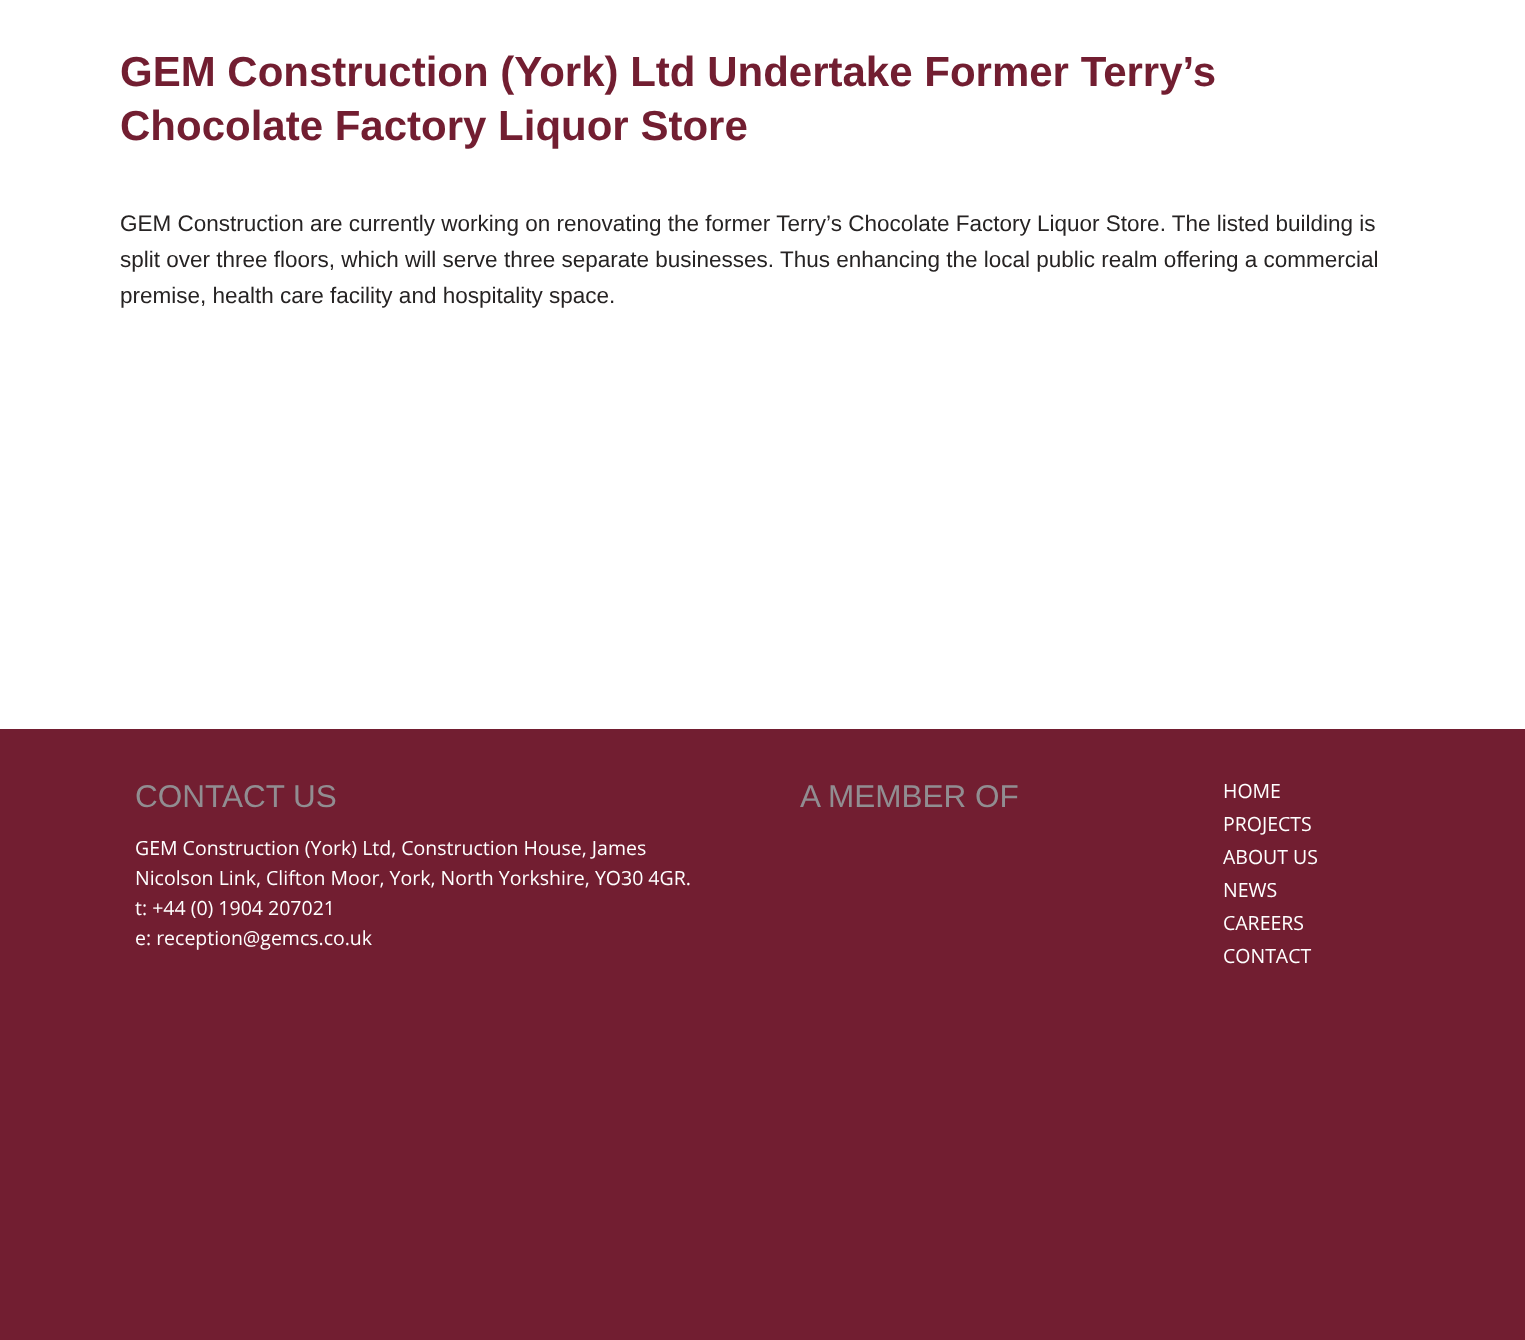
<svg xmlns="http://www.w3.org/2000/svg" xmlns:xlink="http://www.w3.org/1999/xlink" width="1525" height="1340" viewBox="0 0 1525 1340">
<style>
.cls-1{font:bold 42px Liberation Sans;fill:#721e31}
.cls-2{font:22.5px Liberation Sans;fill:#262323}
.cls-3{font:31.5px Liberation Sans;fill:#918d91}
.cls-4{font:19.5px Open Sans;fill:#ffffff}
</style>
<rect width="100%" height="100%" fill="#ffffff"/>
<rect fill="#721e31" x="0" y="729" width="1525" height="611"/>
<text class="cls-1"><tspan x="120" y="86">GEM Construction (York) Ltd Undertake Former Terry’s</tspan><tspan x="120" y="140">Chocolate Factory Liquor Store</tspan></text>
<text class="cls-2"><tspan x="120" y="231">GEM Construction are currently working on renovating the former Terry’s Chocolate Factory Liquor Store. The listed building is</tspan><tspan x="120" y="267">split over three floors, which will serve three separate businesses. Thus enhancing the local public realm offering a commercial</tspan><tspan x="120" y="303">premise, health care facility and hospitality space.</tspan></text>
<text class="cls-3" x="135" y="807">CONTACT US</text>
<text class="cls-4"><tspan x="135" y="855">GEM Construction (York) Ltd, Construction House, James</tspan><tspan x="135" y="885">Nicolson Link, Clifton Moor, York, North Yorkshire, YO30 4GR.</tspan><tspan x="135" y="915">t: +44 (0) 1904 207021</tspan><tspan x="135" y="945">e: reception@gemcs.co.uk</tspan></text>
<text class="cls-3" x="800" y="807">A MEMBER OF</text>
<text class="cls-4"><tspan x="1223" y="798">HOME</tspan><tspan x="1223" y="831">PROJECTS</tspan><tspan x="1223" y="864">ABOUT US</tspan><tspan x="1223" y="897">NEWS</tspan><tspan x="1223" y="930">CAREERS</tspan><tspan x="1223" y="963">CONTACT</tspan></text>
</svg>
